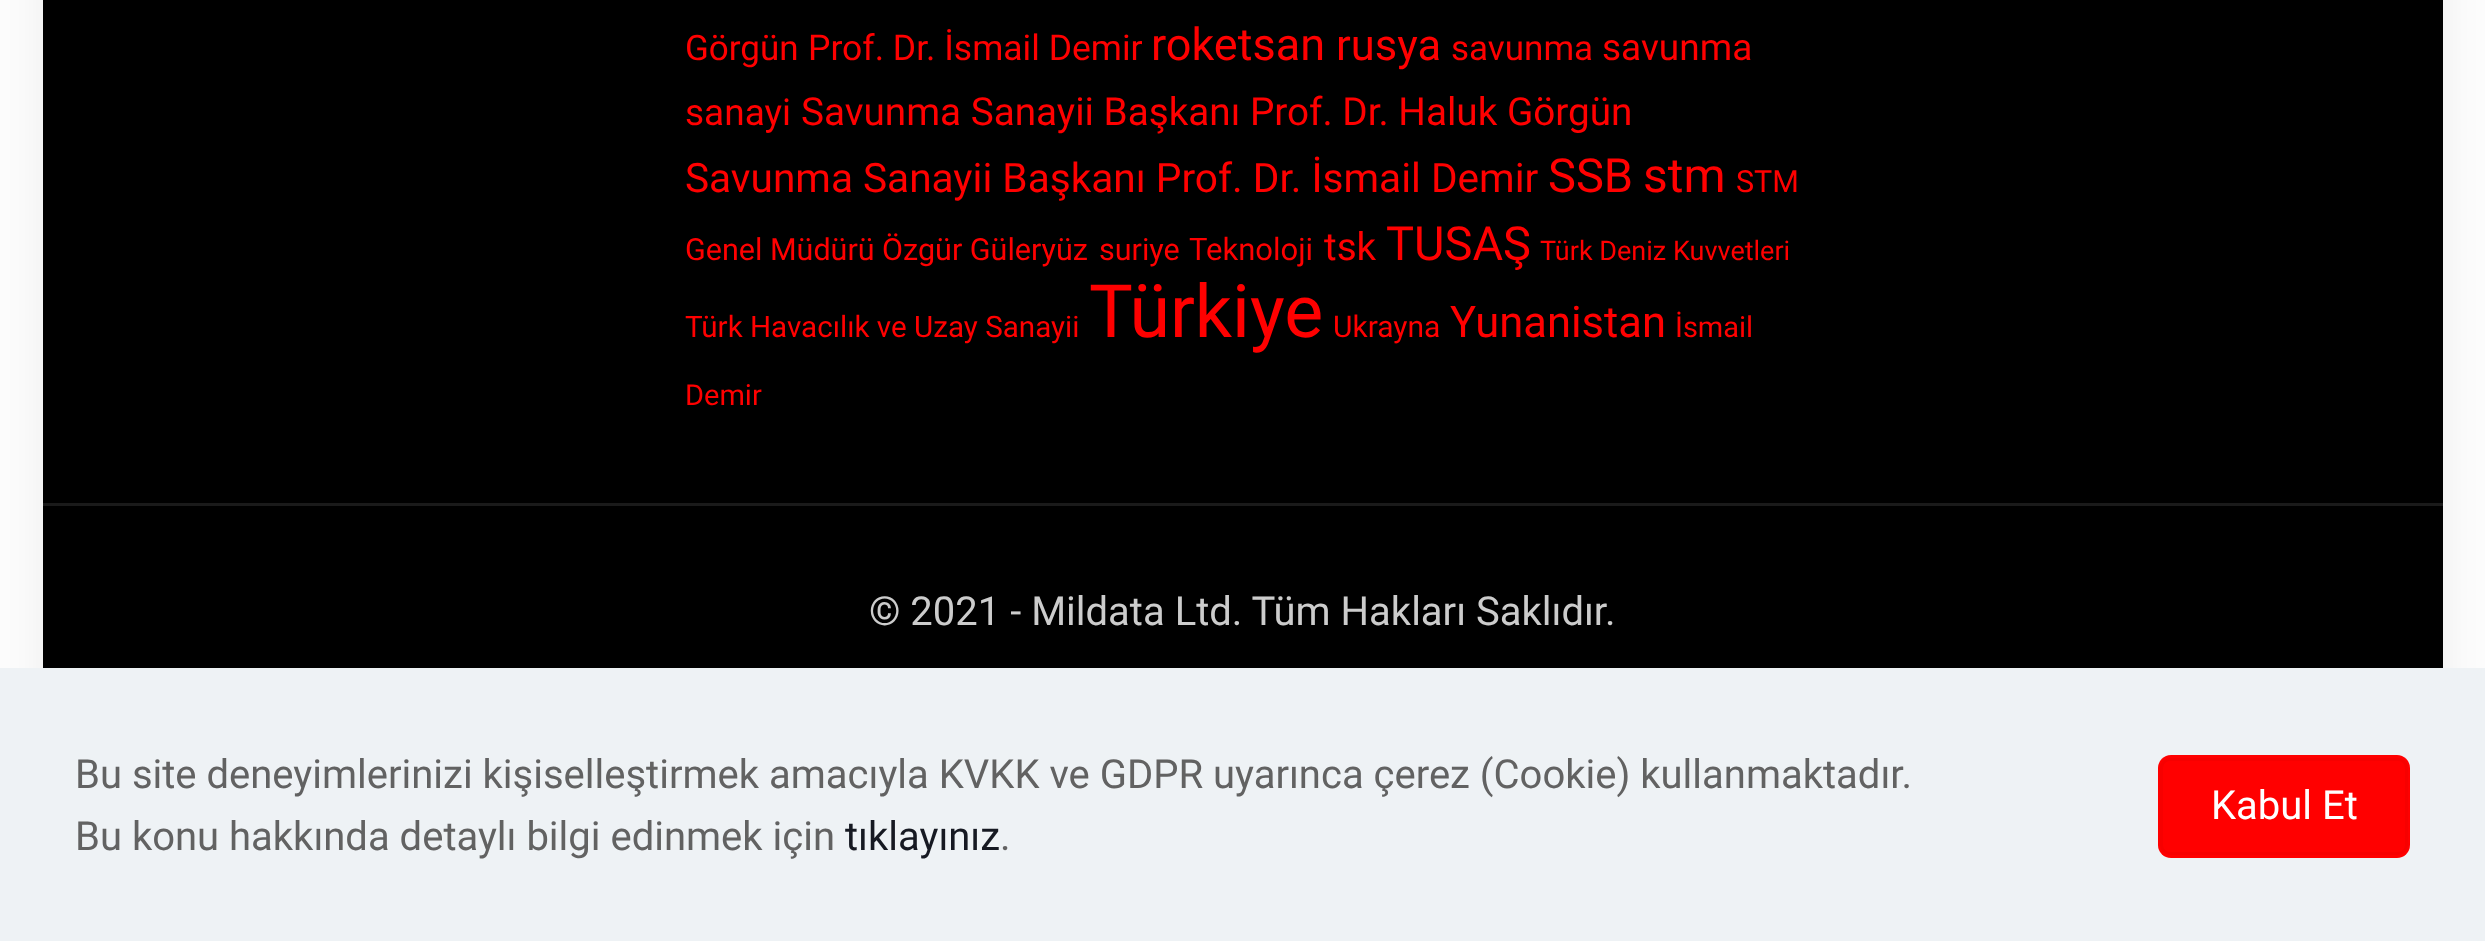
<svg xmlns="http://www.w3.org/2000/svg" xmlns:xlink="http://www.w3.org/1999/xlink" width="2485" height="941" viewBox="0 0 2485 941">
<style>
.cls-1{font:35px Roboto;fill:#ff0000}
.cls-2{font:35.5px Roboto;fill:#ff0000}
.cls-3{font:45px Roboto;fill:#ff0000}
.cls-4{font:43.5px Roboto;fill:#ff0000}
.cls-5{font:37px Roboto;fill:#ff0000}
.cls-6{font:38.7px Roboto;fill:#ff0000}
.cls-7{font:40.6px Roboto;fill:#ff0000}
.cls-8{font:47px Roboto;fill:#ff0000}
.cls-9{font:48px Roboto;fill:#ff0000}
.cls-10{font:30.5px Roboto;fill:#ff0000}
.cls-11{font:31px Roboto;fill:#ff0000}
.cls-12{font:27px Roboto;fill:#ff0000}
.cls-13{font:29.6px Roboto;fill:#ff0000}
.cls-14{font:73.5px Roboto;fill:#ff0000}
.cls-15{font:30px Roboto;fill:#ff0000}
.cls-16{font:29px Roboto;fill:#ff0000}
.cls-17{font:40px Roboto;fill:#cccccc}
.cls-18{font:40px Roboto;fill:#626262}
.cls-19{font:40px Roboto;fill:#161922}
.cls-20{font:40px Roboto;fill:#ffffff}
</style>
<rect width="100%" height="100%" fill="#fcfcfc"/>
<rect fill="#000000" fill-opacity="0.06" filter="blur(19px)" x="43" y="-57" width="2400" height="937"/>
<rect fill="#000000" x="43" y="0" width="2400" height="668"/>
<rect fill="#1a1a1a" x="43" y="503" width="2400" height="3"/>
<rect fill="#eef2f5" x="0" y="668" width="2485" height="273"/>
<rect fill="#ff0000" x="2158" y="755" width="252" height="103" rx="13"/>
<rect fill="none" stroke="#f70000" stroke-width="3" x="2161.5" y="759.5" width="245" height="94" rx="8.5"/>
<text class="cls-1" x="685" y="60">Görgün</text>
<text class="cls-2" x="808" y="60">Prof. Dr. İsmail Demir</text>
<text class="cls-3" x="1151" y="60">roketsan</text>
<text class="cls-4" x="1336" y="60">rusya</text>
<text class="cls-1" x="1451" y="60">savunma</text>
<text class="cls-5" x="1602" y="60">savunma</text>
<text class="cls-5" x="685" y="125">sanayi</text>
<text class="cls-6" x="801" y="125">Savunma Sanayii Başkanı Prof. Dr. Haluk Görgün</text>
<text class="cls-7" x="685" y="192">Savunma Sanayii Başkanı Prof. Dr. İsmail Demir</text>
<text class="cls-8" x="1548" y="192">SSB</text>
<text class="cls-9" x="1643" y="192">stm</text>
<text class="cls-10" x="1736" y="192">STM</text>
<text class="cls-10" x="685" y="260">Genel Müdürü Özgür Güleryüz</text>
<text class="cls-10" x="1099" y="260">suriye</text>
<text class="cls-11" x="1189" y="260">Teknoloji</text>
<text class="cls-6" x="1324" y="260">tsk</text>
<text class="cls-8" x="1386" y="260">TUSAŞ</text>
<text class="cls-12" x="1540" y="260">Türk Deniz Kuvvetleri</text>
<text class="cls-13" x="685" y="337">Türk Havacılık ve Uzay Sanayii</text>
<text class="cls-14" x="1089" y="337">Türkiye</text>
<text class="cls-15" x="1333" y="337">Ukrayna</text>
<text class="cls-4" x="1450" y="337">Yunanistan</text>
<text class="cls-16" x="1675" y="337">İsmail</text>
<text class="cls-16" x="685" y="405">Demir</text>
<text class="cls-17" x="869" y="625">© 2021 - Mildata Ltd. Tüm Hakları Saklıdır.</text>
<text class="cls-18"><tspan x="75" y="788">Bu site deneyimlerinizi kişiselleştirmek amacıyla KVKK ve GDPR uyarınca çerez (Cookie) kullanmaktadır.</tspan><tspan x="75" y="850">Bu konu hakkında detaylı bilgi edinmek için</tspan></text>
<text class="cls-19" x="845" y="850">tıklayınız</text>
<text class="cls-18" x="1000" y="850">.</text>
<text class="cls-20" x="2211" y="819">Kabul Et</text>
</svg>
